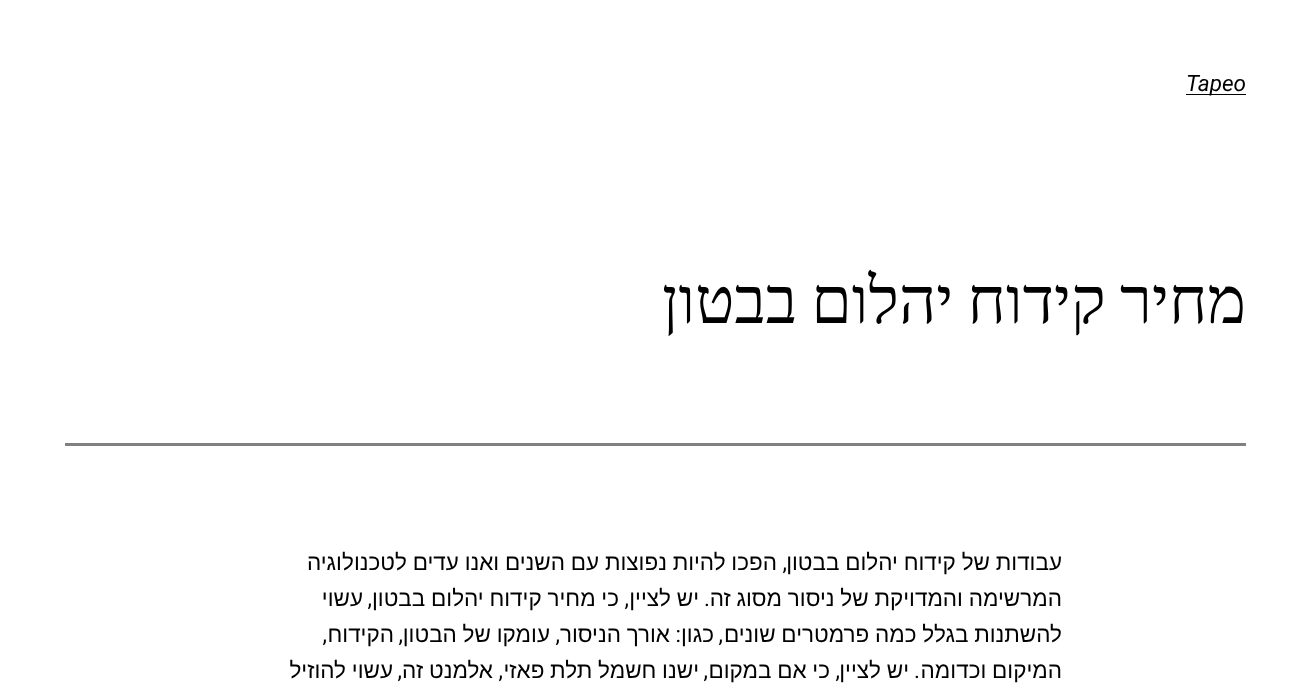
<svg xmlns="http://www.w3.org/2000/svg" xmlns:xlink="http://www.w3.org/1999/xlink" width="1311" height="688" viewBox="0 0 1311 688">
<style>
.cls-1{font:italic 22.5px Roboto;fill:#000000}
.cls-2{font:65px Liberation Serif;direction:rtl;fill:#000000}
.cls-3{font:22.5px Liberation Sans;direction:rtl;fill:#000000}
.cls-4{font:22.5px Roboto;direction:rtl;fill:#000000}
</style>
<rect width="100%" height="100%" fill="#ffffff"/>
<rect fill="#000000" x="1186" y="94" width="60" height="1"/>
<rect fill="#808080" x="65" y="443" width="1181" height="3"/>
<text class="cls-1" x="1186" y="91">Tapeo</text>
<text class="cls-2" x="1246" y="323" word-spacing="-2">מחיר קידוח יהלום בבטון</text>
<text class="cls-3" x="1062" y="570" word-spacing="-0.5">עבודות של קידוח יהלום בבטון</text>
<text class="cls-4" x="787" y="570">,</text>
<text class="cls-3" x="777" y="570" word-spacing="-0.5">הפכו להיות נפוצות עם השנים ואנו עדים לטכנולוגיה</text>
<text class="cls-3" x="1062" y="606" word-spacing="-0.5">המרשימה והמדויקת של ניסור מסוג זה</text>
<text class="cls-4" x="710" y="606">.</text>
<text class="cls-3" x="699" y="606" word-spacing="-0.5">יש לציין</text>
<text class="cls-4" x="629" y="606">,</text>
<text class="cls-3" x="619" y="606" word-spacing="-0.5">כי מחיר קידוח יהלום בבטון</text>
<text class="cls-4" x="372" y="606">,</text>
<text class="cls-3" x="363" y="606">עשוי</text>
<text class="cls-3" x="1062" y="642" word-spacing="-0.5">להשתנות בגלל כמה פרמטרים שונים</text>
<text class="cls-4" x="723" y="642">,</text>
<text class="cls-3" x="714" y="642">כגון</text>
<text class="cls-4" x="681" y="642">:</text>
<text class="cls-3" x="670" y="642" word-spacing="-0.5">אורך הניסור</text>
<text class="cls-4" x="560" y="642">,</text>
<text class="cls-3" x="550" y="642" word-spacing="-0.5">עומקו של הבטון</text>
<text class="cls-4" x="403" y="642">,</text>
<text class="cls-3" x="394" y="642">הקידוח</text>
<text class="cls-4" x="327" y="642">,</text>
<text class="cls-3" x="1062" y="678" word-spacing="-0.5">המיקום וכדומה</text>
<text class="cls-4" x="920" y="678">.</text>
<text class="cls-3" x="909" y="678" word-spacing="-0.5">יש לציין</text>
<text class="cls-4" x="840" y="678">,</text>
<text class="cls-3" x="830" y="678" word-spacing="-0.5">כי אם במקום</text>
<text class="cls-4" x="708" y="678">,</text>
<text class="cls-3" x="699" y="678" word-spacing="-0.5">ישנו חשמל תלת פאזי</text>
<text class="cls-4" x="503" y="678">,</text>
<text class="cls-3" x="493" y="678" word-spacing="-0.5">אלמנט זה</text>
<text class="cls-4" x="402" y="678">,</text>
<text class="cls-3" x="393" y="678" word-spacing="-0.5">עשוי להוזיל</text>
</svg>
